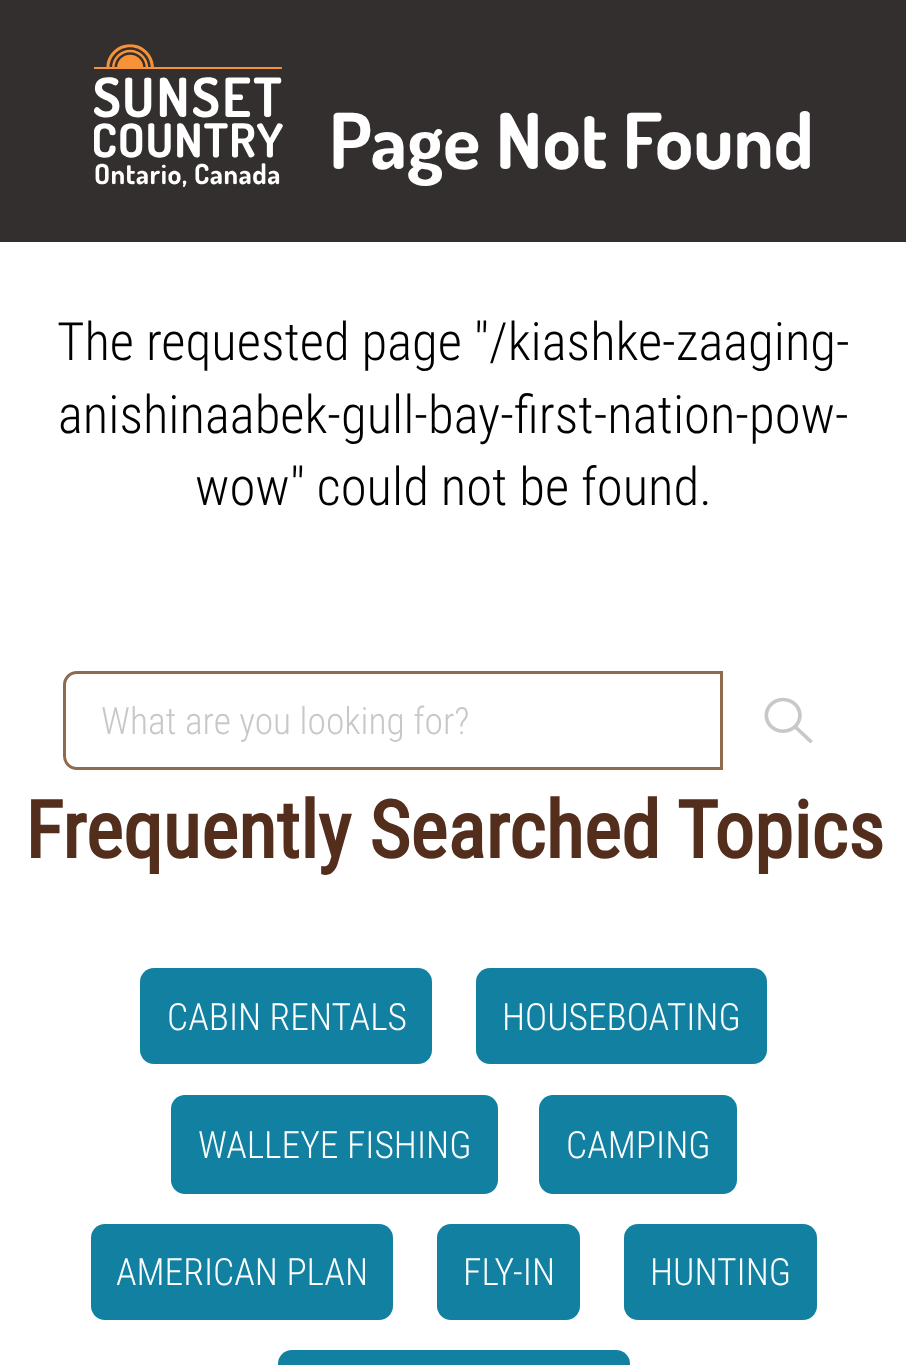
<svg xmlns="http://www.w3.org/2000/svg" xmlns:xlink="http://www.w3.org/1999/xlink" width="906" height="1365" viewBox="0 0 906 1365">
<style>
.cls-1{font:bold 77px Dosis;fill:#ffffff}
.cls-2{font:300 52.75px Roboto Condensed;fill:#000000}
.cls-3{font:300 37.5px Roboto Condensed;fill:#c8c8c8}
.cls-4{font:bold 79.25px Roboto Condensed;fill:#532e1c}
.cls-5{font:300 37.5px Roboto Condensed;fill:#ffffff}
</style>
<rect width="100%" height="100%" fill="#ffffff"/>
<rect fill="#342f2f" x="0" y="0" width="906" height="242"/>
<image xlink:href="image0.png" x="94" y="44" width="189" height="143"/>
<path fill="none" stroke="#8e6b4c" stroke-width="3" d="M77 672.5H721.5V768.5H77C70 768.5 64.5 763 64.5 756V685C64.5 678 70 672.5 77 672.5Z"/>
<image xlink:href="image1.png" x="764" y="697" width="49" height="47"/>
<rect fill="#1281a1" x="140" y="968" width="292" height="96" rx="14"/>
<rect fill="#1281a1" x="476" y="968" width="291" height="96" rx="14"/>
<rect fill="#1281a1" x="171" y="1095" width="327" height="99" rx="14"/>
<rect fill="#1281a1" x="539" y="1095" width="198" height="99" rx="14"/>
<rect fill="#1281a1" x="91" y="1224" width="302" height="96" rx="14"/>
<rect fill="#1281a1" x="437" y="1224" width="143" height="96" rx="14"/>
<rect fill="#1281a1" x="624" y="1224" width="193" height="96" rx="14"/>
<rect fill="#1281a1" x="278" y="1350" width="352" height="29" rx="14"/>
<text class="cls-1" x="329" y="169">Page Not Found</text>
<text class="cls-2" x="57" y="360">The requested page "/kiashke-zaaging-</text>
<text class="cls-2" x="58" y="433">anishinaabek-gull-bay-first-nation-pow-</text>
<text class="cls-2" x="195" y="505">wow" could not be found.</text>
<text class="cls-3" x="101" y="734">What are you looking for?</text>
<text class="cls-4" x="25" y="858">Frequently Searched Topics</text>
<text class="cls-5" x="167" y="1030">CABIN RENTALS</text>
<text class="cls-5" x="502" y="1030">HOUSEBOATING</text>
<text class="cls-5" x="198" y="1158">WALLEYE FISHING</text>
<text class="cls-5" x="566" y="1158">CAMPING</text>
<text class="cls-5" x="116" y="1285">AMERICAN PLAN</text>
<text class="cls-5" x="463" y="1285">FLY-IN</text>
<text class="cls-5" x="650" y="1285">HUNTING</text>
</svg>
